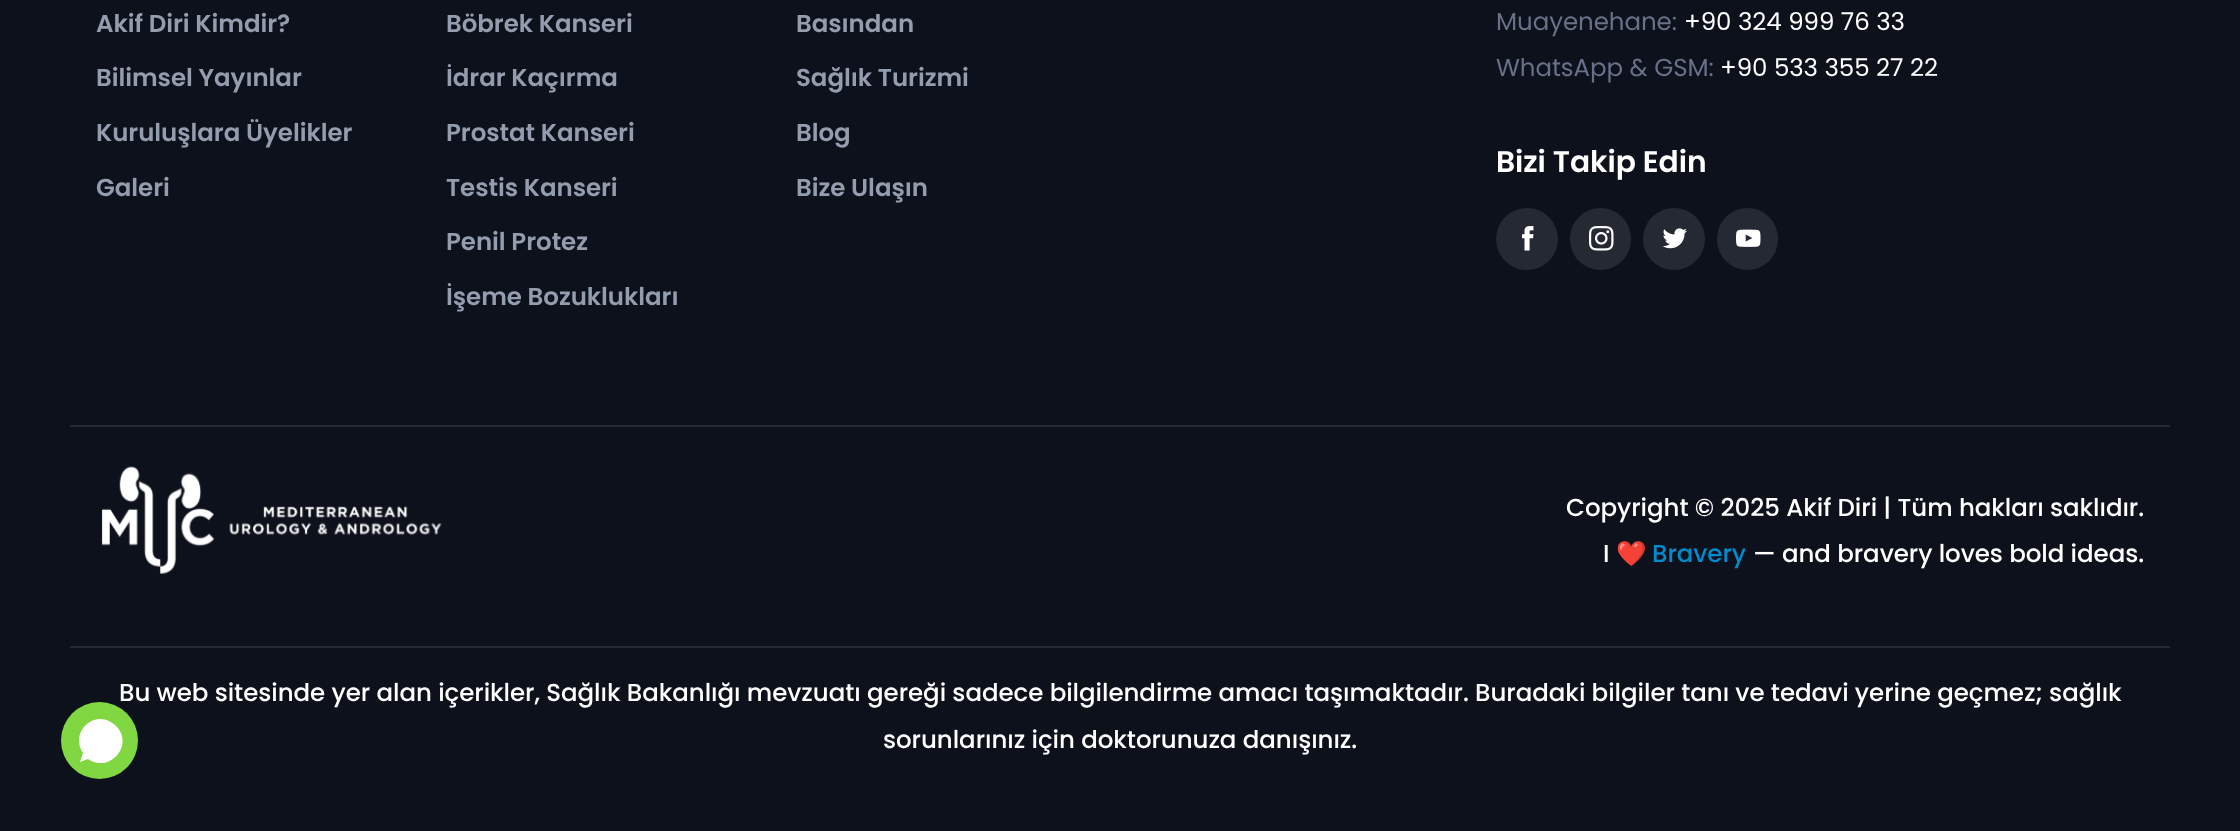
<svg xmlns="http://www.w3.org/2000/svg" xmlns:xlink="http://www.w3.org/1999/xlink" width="2240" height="831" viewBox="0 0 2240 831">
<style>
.cls-1{font:600 24.5px Poppins;letter-spacing:-0.05px;fill:#949dad}
.cls-2{font:24.5px Poppins;letter-spacing:-0.05px;fill:#687188}
.cls-3{font:24.5px Poppins;letter-spacing:-0.05px;fill:#ffffff}
.cls-4{font:600 29.75px Poppins;letter-spacing:-0.05px;fill:#ffffff}
.cls-5{font:500 24.5px Poppins;letter-spacing:-0.05px;fill:#ffffff}
.cls-6{font:24.5px Noto Color Emoji;letter-spacing:-0.05px;fill:#ffffff}
.cls-7{font:500 24.5px Poppins;letter-spacing:-0.05px;fill:#008bce}
</style>
<defs>
<clipPath id="clip1"><rect x="79" y="719" width="44" height="44"/></clipPath>
</defs>
<rect width="100%" height="100%" fill="#0d111c"/>
<circle fill="#252933" cx="1527" cy="239" r="31"/>
<image xlink:href="image0.png" x="1522" y="226" width="12" height="25"/>
<rect fill="#252933" x="1570" y="208" width="61" height="62" rx="30.5"/>
<image xlink:href="image1.png" x="1589" y="226" width="25" height="25"/>
<circle fill="#252933" cx="1674" cy="239" r="31"/>
<image xlink:href="image2.png" x="1662" y="228" width="25" height="21"/>
<rect fill="#252933" x="1717" y="208" width="61" height="62" rx="30.5"/>
<image xlink:href="image3.png" x="1736" y="229" width="25" height="18"/>
<rect fill="#252933" x="70" y="425" width="2100" height="2"/>
<image xlink:href="image4.png" x="101" y="466" width="341" height="108"/>
<rect fill="#252933" x="70" y="646" width="2100" height="2"/>
<text class="cls-1" x="96" y="32">Akif Diri Kimdir?</text>
<text class="cls-1" x="96" y="86">Bilimsel Yayınlar</text>
<text class="cls-1" x="96" y="141">Kuruluşlara Üyelikler</text>
<text class="cls-1" x="96" y="196">Galeri</text>
<text class="cls-1" x="446" y="32">Böbrek Kanseri</text>
<text class="cls-1" x="446" y="86">İdrar Kaçırma</text>
<text class="cls-1" x="446" y="141">Prostat Kanseri</text>
<text class="cls-1" x="446" y="196">Testis Kanseri</text>
<text class="cls-1" x="446" y="250">Penil Protez</text>
<text class="cls-1" x="446" y="305">İşeme Bozuklukları</text>
<text class="cls-1" x="796" y="32">Basından</text>
<text class="cls-1" x="796" y="86">Sağlık Turizmi</text>
<text class="cls-1" x="796" y="141">Blog</text>
<text class="cls-1" x="796" y="196">Bize Ulaşın</text>
<text class="cls-2" x="1496" y="30">Muayenehane:</text>
<text class="cls-3" x="1684" y="30">+90 324 999 76 33</text>
<text class="cls-2" x="1496" y="76">WhatsApp &amp; GSM:</text>
<text class="cls-3" x="1720" y="76">+90 533 355 27 22</text>
<text class="cls-4" x="1496" y="172">Bizi Takip Edin</text>
<text class="cls-5" x="1566" y="516">Copyright © 2025 Akif Diri | Tüm hakları saklıdır.</text>
<text class="cls-5" x="1603" y="562">I</text>
<text class="cls-6" x="1616" y="562">❤️</text>
<text class="cls-7" x="1652" y="562">Bravery</text>
<text class="cls-5" x="1753" y="562">— and bravery loves bold ideas.</text>
<text class="cls-5" x="119" y="701">Bu web sitesinde yer alan içerikler, Sağlık Bakanlığı mevzuatı gereği sadece bilgilendirme amacı taşımaktadır. Buradaki bilgiler tanı ve tedavi yerine geçmez; sağlık</text>
<text class="cls-5" x="883" y="748">sorunlarınız için doktorunuza danışınız.</text>
<circle fill="#81d742" cx="99.5" cy="740.5" r="38.5"/>
<g clip-path="url(#clip1)">
<path fill="#ffffff" d="M101 719C83 719 73 739 83 753L80 762L88 759C109 774 135 745 116 726C112 722 106 719 101 719Z"/>
</g>
</svg>
